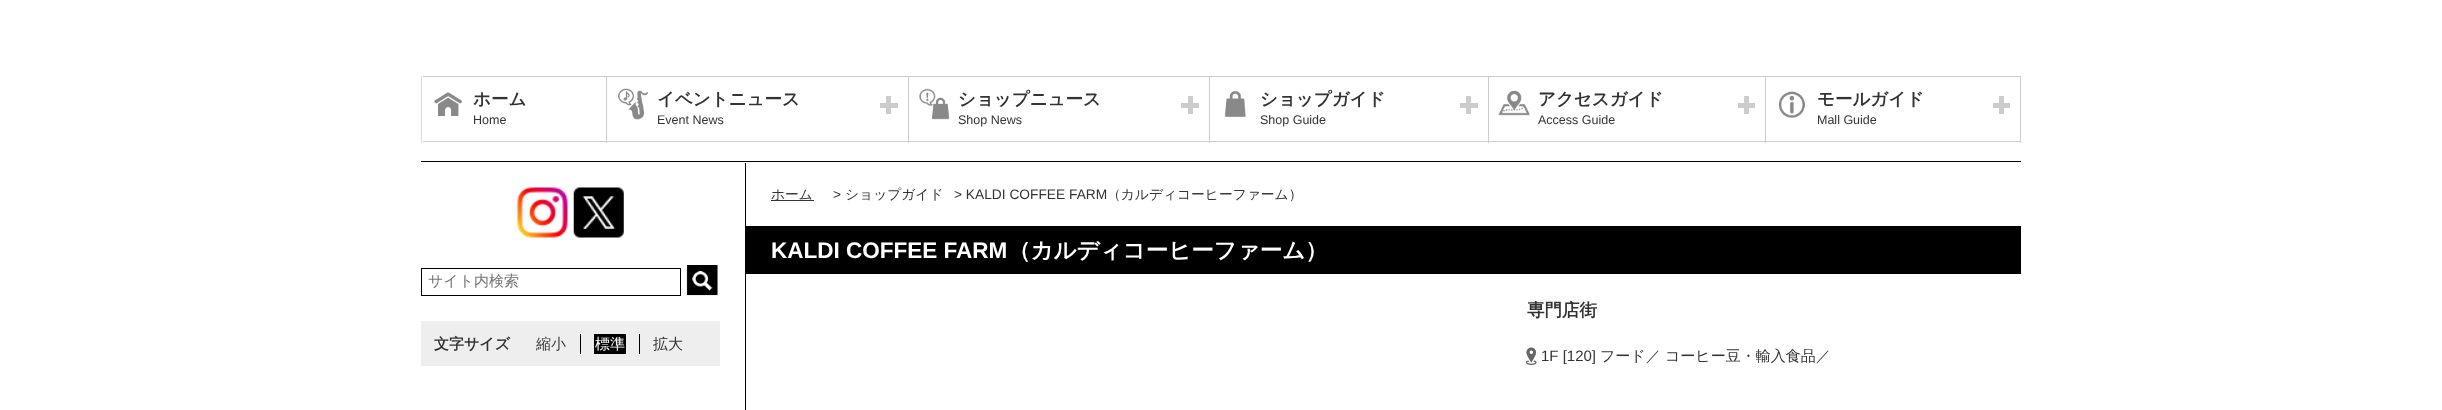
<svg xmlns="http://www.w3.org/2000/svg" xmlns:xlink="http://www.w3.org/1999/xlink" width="2442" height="410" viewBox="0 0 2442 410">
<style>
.cls-1{font:bold 17.5px WenQuanYi Zen Hei;fill:#333333}
.cls-2{font:12.5px Liberation Sans;fill:#333333}
.cls-3{font:500 15px WenQuanYi Zen Hei;fill:#757575}
.cls-4{font:bold 15px WenQuanYi Zen Hei;fill:#333333}
.cls-5{font:500 15px WenQuanYi Zen Hei;fill:#333333}
.cls-6{font:500 15px WenQuanYi Zen Hei;fill:#ffffff}
.cls-7{font:500 13.75px WenQuanYi Zen Hei;fill:#333333}
.cls-8{font:13.75px Liberation Sans;fill:#333333}
.cls-9{font:bold 22.5px Liberation Sans;fill:#ffffff}
.cls-10{font:bold 22.5px WenQuanYi Zen Hei;fill:#ffffff}
.cls-11{font:15px Liberation Sans;fill:#333333}
</style>
<rect width="100%" height="100%" fill="#ffffff"/>
<rect fill="#000000" x="421" y="161" width="1600" height="1"/>
<rect fill="#dddddd" x="421" y="76" width="1" height="67"/>
<image xlink:href="image0.png" x="434" y="92" width="28" height="24"/>
<rect fill="#cccccc" x="423" y="76" width="1598" height="1"/>
<rect fill="#cccccc" x="606" y="76" width="1" height="67"/>
<rect fill="#cccccc" x="423" y="141" width="185" height="1"/>
<image xlink:href="image1.png" x="618" y="88" width="30" height="32"/>
<rect fill="#cccccc" x="908" y="76" width="1" height="67"/>
<rect fill="#cccccc" x="608" y="141" width="301" height="1"/>
<rect fill="#cccccc" x="880" y="103" width="18" height="5"/>
<rect fill="#cccccc" x="886" y="96" width="5" height="18"/>
<image xlink:href="image2.png" x="919" y="88" width="31" height="32"/>
<rect fill="#cccccc" x="1209" y="76" width="1" height="67"/>
<rect fill="#cccccc" x="909" y="141" width="301" height="1"/>
<rect fill="#cccccc" x="1181" y="103" width="18" height="5"/>
<rect fill="#cccccc" x="1188" y="96" width="5" height="18"/>
<image xlink:href="image3.png" x="1224" y="90" width="22" height="27"/>
<rect fill="#cccccc" x="1488" y="76" width="1" height="67"/>
<rect fill="#cccccc" x="1210" y="141" width="279" height="1"/>
<rect fill="#cccccc" x="1460" y="103" width="18" height="5"/>
<rect fill="#cccccc" x="1466" y="96" width="5" height="18"/>
<image xlink:href="image4.png" x="1498" y="90" width="32" height="26"/>
<rect fill="#cccccc" x="1765" y="76" width="1" height="67"/>
<rect fill="#cccccc" x="1489" y="141" width="277" height="1"/>
<rect fill="#cccccc" x="1738" y="103" width="17" height="5"/>
<rect fill="#cccccc" x="1744" y="96" width="5" height="18"/>
<image xlink:href="image5.png" x="1779" y="91" width="26" height="27"/>
<rect fill="#cccccc" x="2020" y="76" width="1" height="67"/>
<rect fill="#cccccc" x="1766" y="141" width="255" height="1"/>
<rect fill="#cccccc" x="1993" y="103" width="17" height="5"/>
<rect fill="#cccccc" x="1999" y="96" width="5" height="18"/>
<rect fill="#000000" x="745" y="163" width="1" height="247"/>
<image xlink:href="image6.png" x="517" y="187" width="51" height="51"/>
<image xlink:href="image7.png" x="573" y="187" width="51" height="51"/>
<rect fill="none" stroke="#000000" x="421.5" y="268.5" width="259" height="27"/>
<rect fill="#efefef" x="686" y="265" width="32" height="31"/>
<image xlink:href="image8.png" x="687" y="265" width="31" height="30"/>
<rect fill="#eeeeee" x="421" y="321" width="299" height="45"/>
<rect fill="#000000" x="580" y="334" width="1" height="20"/>
<rect fill="#000000" x="594" y="334" width="32" height="20"/>
<rect fill="#000000" x="639" y="334" width="1" height="20"/>
<rect fill="#333333" x="771" y="200" width="43" height="1"/>
<rect fill="#000000" x="746" y="226" width="1275" height="48"/>
<image xlink:href="image9.png" x="1526" y="347" width="11" height="18"/>
<text class="cls-1" x="473" y="105">ホーム</text>
<text class="cls-2" x="473" y="124">Home</text>
<text class="cls-1" x="657" y="105">イベントニュース</text>
<text class="cls-2" x="657" y="124">Event News</text>
<text class="cls-1" x="958" y="105">ショップニュース</text>
<text class="cls-2" x="958" y="124">Shop News</text>
<text class="cls-1" x="1260" y="105">ショップガイド</text>
<text class="cls-2" x="1260" y="124">Shop Guide</text>
<text class="cls-1" x="1538" y="105">アクセスガイド</text>
<text class="cls-2" x="1538" y="124">Access Guide</text>
<text class="cls-1" x="1817" y="105">モールガイド</text>
<text class="cls-2" x="1817" y="124">Mall Guide</text>
<text class="cls-3" x="428" y="286">サイト内検索</text>
<text class="cls-4" x="434" y="349">文字サイズ</text>
<text class="cls-5" x="536" y="349">縮小</text>
<text class="cls-6" x="595" y="349">標準</text>
<text class="cls-5" x="653" y="349">拡大</text>
<text class="cls-7" x="771" y="199">ホーム</text>
<text class="cls-8" x="833" y="199">&gt;</text>
<text class="cls-7" x="845" y="199">ショップガイド</text>
<text class="cls-8" x="954" y="199">&gt; KALDI COFFEE FARM</text>
<text class="cls-7" x="1107" y="199">（カルディコーヒーファーム）</text>
<text class="cls-9" x="771" y="258">KALDI COFFEE FARM</text>
<text class="cls-10" x="1008" y="258">（カルディコーヒーファーム）</text>
<text class="cls-1" x="1527" y="316">専門店街</text>
<text class="cls-11" x="1541" y="361">1F [120]</text>
<text class="cls-5" x="1600" y="361">フード／</text>
<text class="cls-5" x="1665" y="361">コーヒー豆・輸入食品／</text>
</svg>
